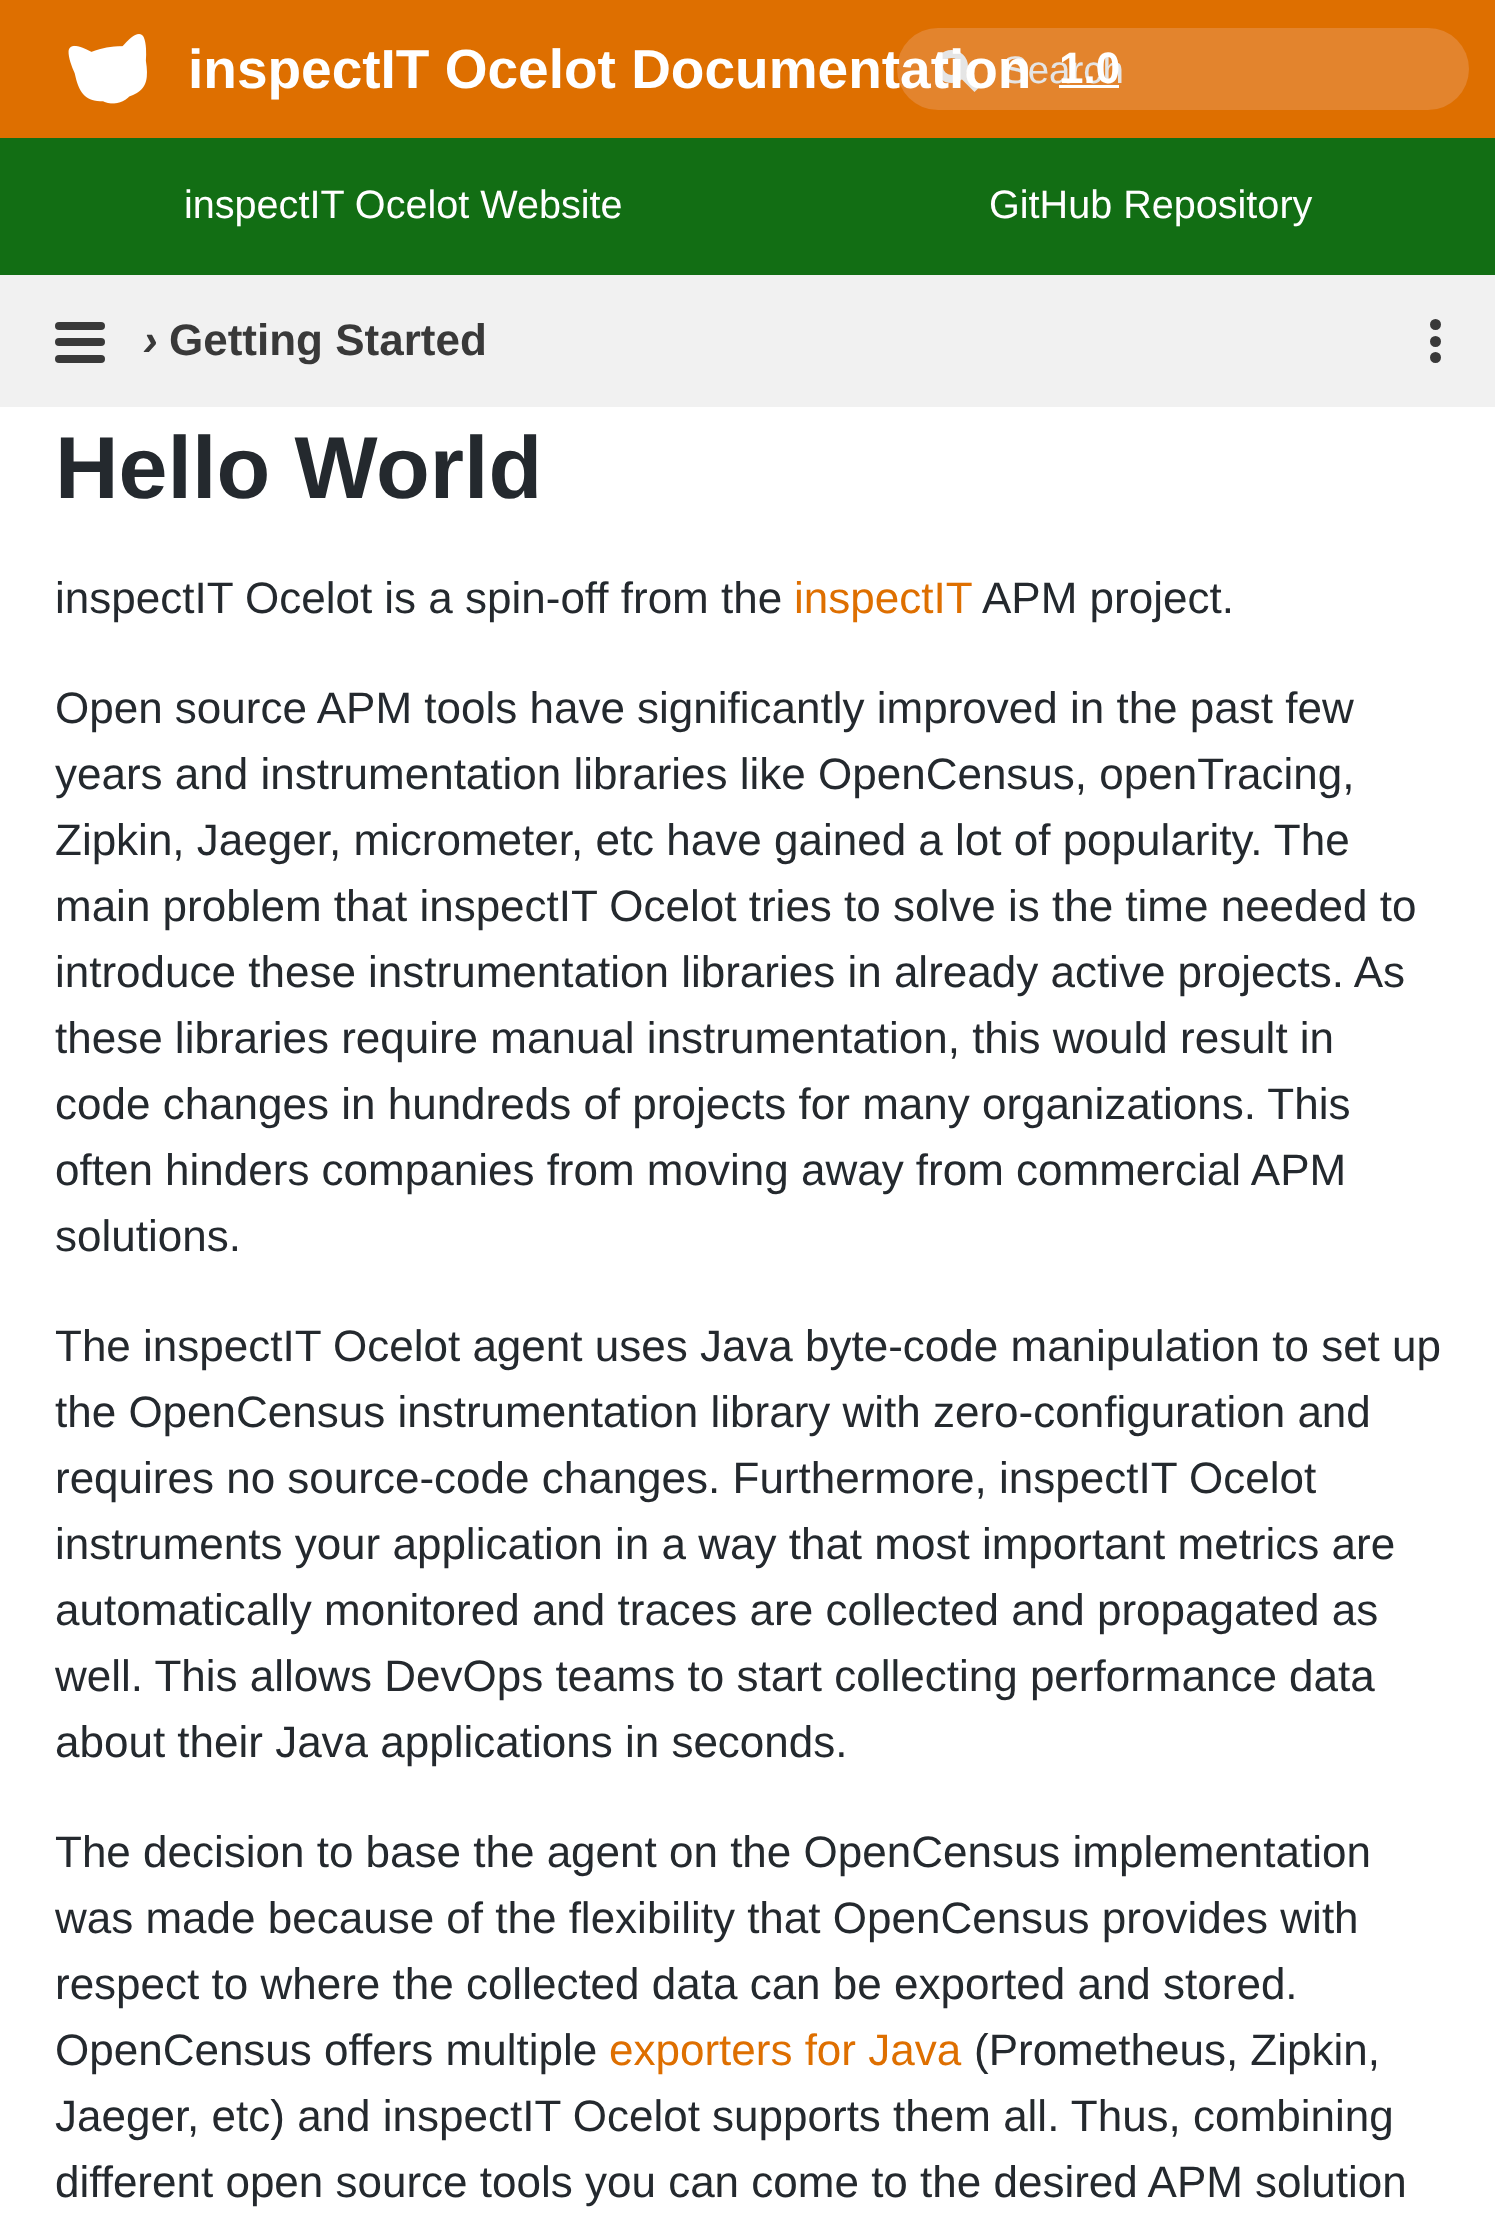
<svg xmlns="http://www.w3.org/2000/svg" xmlns:xlink="http://www.w3.org/1999/xlink" width="1495" height="2225" viewBox="0 0 1495 2225">
<style>
.cls-1{font:38.5px Liberation Sans;fill:#e5e5e5}
.cls-2{font:bold 44px Liberation Sans;fill:#ffffff}
.cls-3{font:bold 55px Liberation Sans;fill:#ffffff}
.cls-4{font:39.6px Liberation Sans;fill:#ffffff}
.cls-5{font:italic bold 44px Liberation Sans;fill:#393939}
.cls-6{font:bold 44px Liberation Sans;fill:#393939}
.cls-7{font:bold 88px Liberation Sans;fill:#24292e}
.cls-8{font:44px Liberation Sans;fill:#24292e}
.cls-9{font:44px Liberation Sans;fill:#de6f00}
</style>
<rect width="100%" height="100%" fill="#ffffff"/>
<rect fill="#de6f00" x="0" y="0" width="1495" height="138"/>
<image xlink:href="image0.png" x="68" y="34" width="79" height="70"/>
<rect fill="#e3842d" x="897" y="28" width="572" height="82" rx="41"/>
<rect fill="#ffffff" x="1059" y="85" width="60" height="3"/>
<rect fill="#126e14" x="0" y="138" width="1495" height="137"/>
<circle fill="none" stroke="#e5e5e5" stroke-width="8" cx="951.5" cy="66.5" r="12.5"/>
<path fill="#e5e5e5" d="M961 78.5L966.5 73L980 86.5L974.5 92Z"/>
<rect fill="#f1f1f1" x="0" y="275" width="1495" height="132"/>
<rect fill="#393939" x="55" y="322" width="50" height="8" rx="4"/>
<rect fill="#393939" x="55" y="338" width="50" height="8" rx="4"/>
<rect fill="#393939" x="55" y="355" width="50" height="8" rx="4"/>
<circle fill="#393939" stroke="#393939" stroke-width="3" cx="1435.5" cy="341.5" r="4"/>
<circle fill="#393939" stroke="#393939" stroke-width="3" cx="1435.5" cy="324.5" r="4"/>
<circle fill="#393939" stroke="#393939" stroke-width="3" cx="1435.5" cy="357.5" r="4"/>
<text class="cls-1" x="1002" y="83">Search</text>
<text class="cls-2" x="1059" y="83">1.0</text>
<text class="cls-3" x="188" y="88">inspectIT Ocelot Documentation</text>
<text class="cls-4" x="184" y="218">inspectIT Ocelot Website</text>
<text class="cls-4" x="989" y="218">GitHub Repository</text>
<text class="cls-5" x="143" y="355">›</text>
<text class="cls-6" x="169" y="355">Getting Started</text>
<text class="cls-7" x="55" y="498">Hello World</text>
<text class="cls-8" x="55" y="613">inspectIT Ocelot is a spin-off from the</text>
<text class="cls-9" x="794" y="613">inspectIT</text>
<text class="cls-8" x="982" y="613">APM project.</text>
<text class="cls-8"><tspan x="55" y="723">Open source APM tools have significantly improved in the past few</tspan><tspan x="55" y="789">years and instrumentation libraries like OpenCensus, openTracing,</tspan><tspan x="55" y="855">Zipkin, Jaeger, micrometer, etc have gained a lot of popularity. The</tspan><tspan x="55" y="921">main problem that inspectIT Ocelot tries to solve is the time needed to</tspan><tspan x="55" y="987">introduce these instrumentation libraries in already active projects. As</tspan><tspan x="55" y="1053">these libraries require manual instrumentation, this would result in</tspan><tspan x="55" y="1119">code changes in hundreds of projects for many organizations. This</tspan><tspan x="55" y="1185">often hinders companies from moving away from commercial APM</tspan><tspan x="55" y="1251">solutions.</tspan></text>
<text class="cls-8"><tspan x="55" y="1361">The inspectIT Ocelot agent uses Java byte-code manipulation to set up</tspan><tspan x="55" y="1427">the OpenCensus instrumentation library with zero-configuration and</tspan><tspan x="55" y="1493">requires no source-code changes. Furthermore, inspectIT Ocelot</tspan><tspan x="55" y="1559">instruments your application in a way that most important metrics are</tspan><tspan x="55" y="1625">automatically monitored and traces are collected and propagated as</tspan><tspan x="55" y="1691">well. This allows DevOps teams to start collecting performance data</tspan><tspan x="55" y="1757">about their Java applications in seconds.</tspan></text>
<text class="cls-8"><tspan x="55" y="1867">The decision to base the agent on the OpenCensus implementation</tspan><tspan x="55" y="1933">was made because of the flexibility that OpenCensus provides with</tspan><tspan x="55" y="1999">respect to where the collected data can be exported and stored.</tspan><tspan x="55" y="2065">OpenCensus offers multiple</tspan></text>
<text class="cls-9" x="609" y="2065">exporters for Java</text>
<text class="cls-8" x="974" y="2065">(Prometheus, Zipkin,</text>
<text class="cls-8"><tspan x="55" y="2131">Jaeger, etc) and inspectIT Ocelot supports them all. Thus, combining</tspan><tspan x="55" y="2197">different open source tools you can come to the desired APM solution</tspan></text>
</svg>
